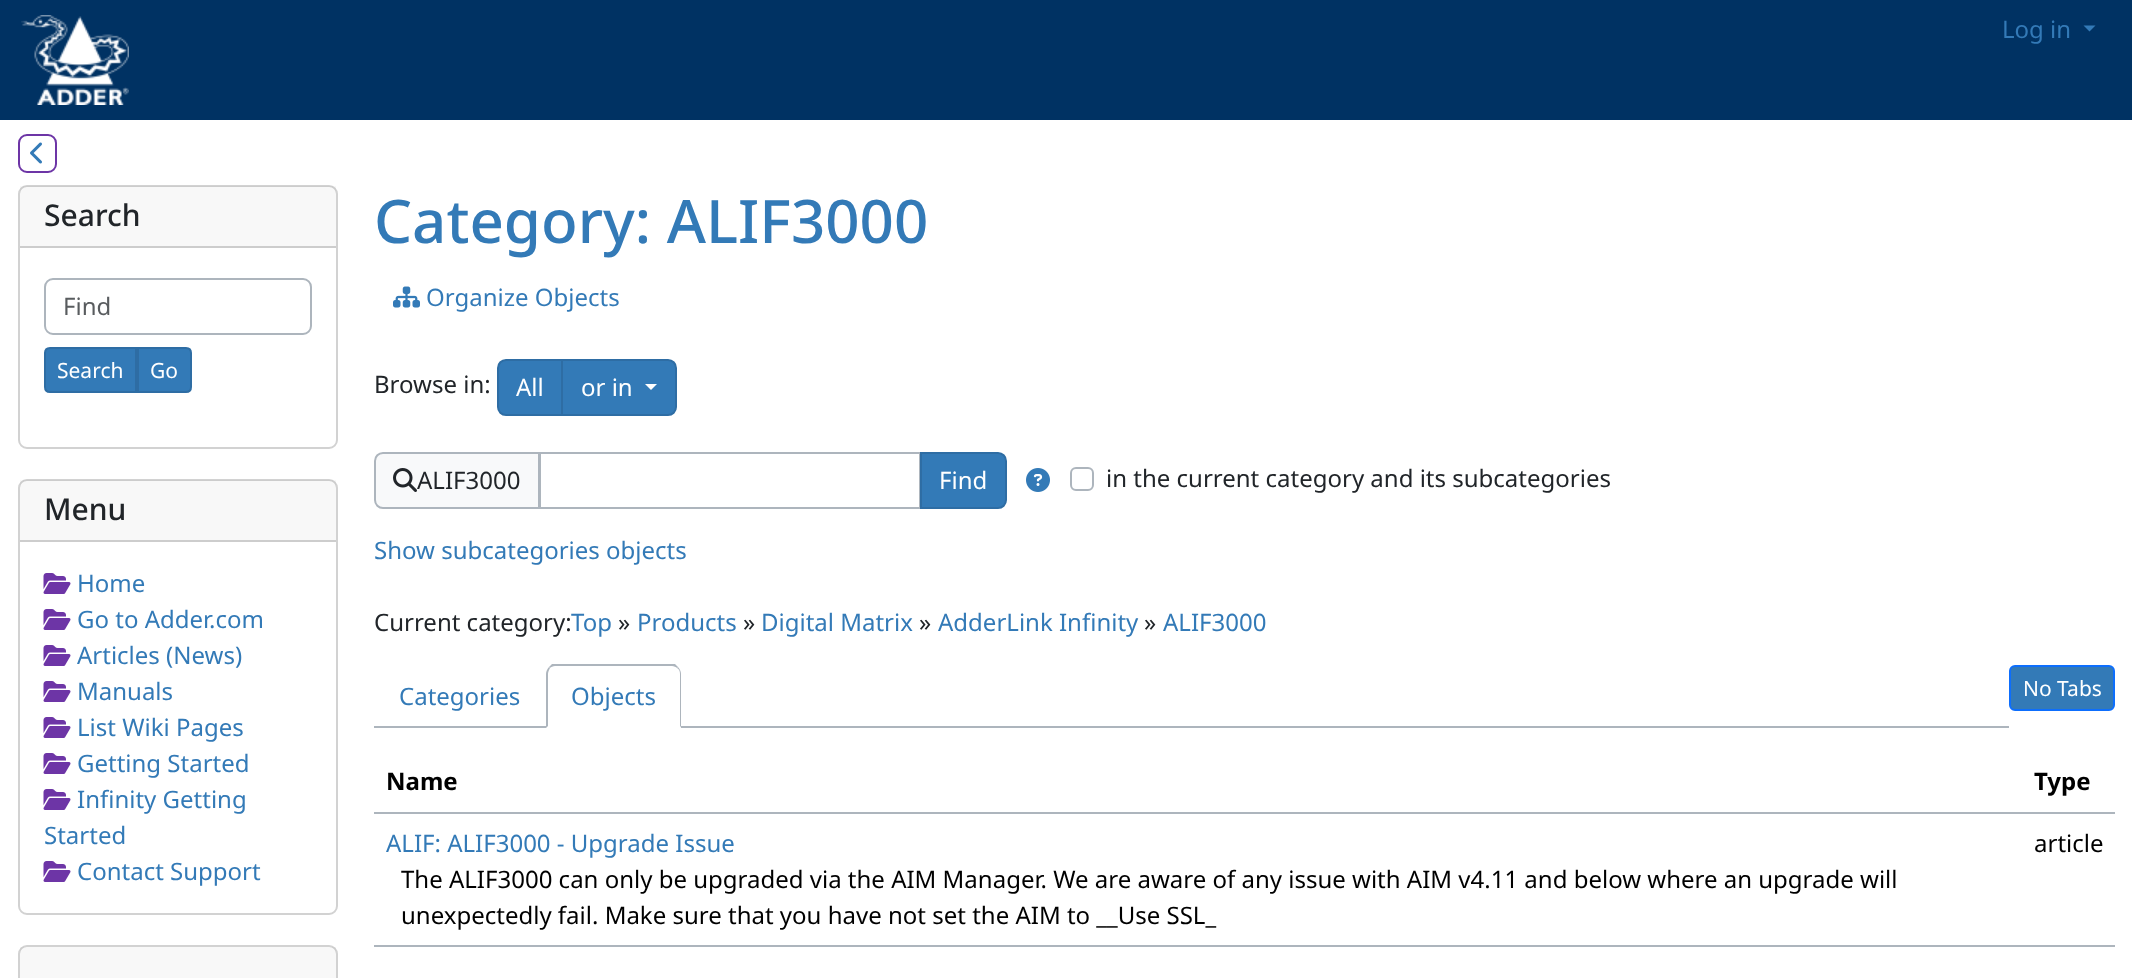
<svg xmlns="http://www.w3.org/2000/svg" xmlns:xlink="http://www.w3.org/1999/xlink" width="2132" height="978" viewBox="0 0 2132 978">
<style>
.cls-1{font:24px Noto Sans;fill:#337ab7}
.cls-2{font:500 30px Noto Sans;fill:#212529}
.cls-3{font:24px Noto Sans;fill:#595c5f}
.cls-4{font:21px Noto Sans;fill:#ffffff}
.cls-5{font:500 60px Noto Sans;fill:#337ab7}
.cls-6{font:24px Noto Sans;fill:#212529}
.cls-7{font:24px Noto Sans;fill:#ffffff}
.cls-8{font:bold 24px Noto Sans;fill:#000000}
.cls-9{font:24px Noto Sans;fill:#000000}
</style>
<rect width="100%" height="100%" fill="#ffffff"/>
<rect fill="#003263" x="0" y="0" width="2132" height="120"/>
<image xlink:href="image0.png" x="21" y="15" width="108" height="90"/>
<path fill="#337ab7" d="M2083.5 25.5H2095.5L2089.5 31.5Z"/>
<rect fill="none" stroke="#6d35a6" stroke-width="2" x="19" y="135" width="37" height="37" rx="8"/>
<image xlink:href="image1.png" x="30" y="142" width="12" height="22"/>
<rect fill="none" stroke="#d2d2d2" stroke-width="2" x="19" y="186" width="318" height="262" rx="8"/>
<rect fill="#212529" fill-opacity="0.03" x="20" y="186" width="316" height="60"/>
<rect fill="#cdcdcd" x="20" y="246" width="316" height="2"/>
<rect fill="none" stroke="#adb5bd" stroke-width="2" x="45" y="279" width="266" height="55" rx="8"/>
<path fill="#337ab7" stroke="#2e6da4" stroke-width="2" d="M50 348H136V392H50C47 392 45 390 45 387V353C45 350 47 348 50 348Z"/>
<path fill="#337ab7" stroke="#2e6da4" stroke-width="2" d="M138 348H186C189 348 191 350 191 353V387C191 390 189 392 186 392H138Z"/>
<rect fill="none" stroke="#d2d2d2" stroke-width="2" x="19" y="480" width="318" height="434" rx="8"/>
<rect fill="#212529" fill-opacity="0.03" x="20" y="480" width="316" height="60"/>
<rect fill="#cdcdcd" x="20" y="540" width="316" height="2"/>
<image xlink:href="image2.png" x="43" y="573" width="28" height="21"/>
<image xlink:href="image2.png" x="43" y="609" width="28" height="21"/>
<image xlink:href="image2.png" x="43" y="645" width="28" height="21"/>
<image xlink:href="image2.png" x="43" y="681" width="28" height="21"/>
<image xlink:href="image2.png" x="43" y="717" width="28" height="21"/>
<image xlink:href="image2.png" x="43" y="753" width="28" height="21"/>
<image xlink:href="image2.png" x="43" y="789" width="28" height="21"/>
<image xlink:href="image2.png" x="43" y="861" width="28" height="21"/>
<rect fill="none" stroke="#d2d2d2" stroke-width="2" x="19" y="946" width="318" height="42" rx="8"/>
<rect fill="#212529" fill-opacity="0.03" x="20" y="947" width="316" height="31"/>
<image xlink:href="image3.png" x="393" y="286" width="27" height="22"/>
<path fill="#337ab7" stroke="#2e6da4" stroke-width="2" d="M506 360H562V415H506C501.5 415 498 411.5 498 407V368C498 363.5 501.5 360 506 360Z"/>
<path fill="#337ab7" stroke="#2e6da4" stroke-width="2" d="M562 360H668C672.5 360 676 363.5 676 368V407C676 411.5 672.5 415 668 415H562Z"/>
<path fill="#ffffff" d="M645 384H657L651 390Z"/>
<path fill="#f8f9fa" stroke="#adb5bd" stroke-width="2" d="M383 453H539V508H383C378.5 508 375 504.5 375 500V461C375 456.5 378.5 453 383 453Z"/>
<image xlink:href="image4.png" x="393" y="468" width="24" height="24"/>
<rect fill="none" stroke="#adb5bd" stroke-width="2" x="540" y="453" width="380" height="55"/>
<path fill="#337ab7" stroke="#2e6da4" stroke-width="2" d="M921 453H998C1002.5 453 1006 456.5 1006 461V500C1006 504.5 1002.5 508 998 508H921Z"/>
<image xlink:href="image5.png" x="1026" y="468" width="24" height="24"/>
<rect fill="none" stroke="#adb5bd" stroke-width="2" x="1071" y="468" width="22" height="22" rx="5"/>
<rect fill="#adb5bd" x="374" y="726" width="1635" height="2"/>
<path fill="#ffffff" d="M555 665H672C677 665 681 669 681 674V728H546V674C546 669 550 665 555 665Z"/>
<path fill="#adb5bd" d="M555 666C553 666 551 667 550 668L549 667L552 664H675L678 667L677 668C676 667 674 666 672 666Z"/>
<path fill="#adb5bd" d="M681 728V674C681 672 680 669 678 667L677 668C679 669 680 671 680 674V726Z"/>
<path fill="#ffffff" d="M681 728H546L548 726H680Z"/>
<path fill="#adb5bd" d="M546 728L548 726V674C548 672 549 670 550 668L549 667C547 669 546 672 546 674Z"/>
<rect fill="#337ab7" stroke="#0d6efd" stroke-width="2" x="2010" y="666" width="104" height="44" rx="5"/>
<rect fill="#adb5bd" x="374" y="812" width="1741" height="2"/>
<rect fill="#adb5bd" x="374" y="945" width="1741" height="2"/>
<text class="cls-1" x="2002" y="38">Log in</text>
<text class="cls-2" x="44" y="226">Search</text>
<text class="cls-3" x="63" y="315">Find</text>
<text class="cls-4" x="57" y="378">Search</text>
<text class="cls-4" x="150" y="378">Go</text>
<text class="cls-2" x="44" y="520">Menu</text>
<text class="cls-1"><tspan x="77" y="592">Home</tspan><tspan x="77" y="628">Go to Adder.com</tspan><tspan x="77" y="664">Articles (News)</tspan><tspan x="77" y="700">Manuals</tspan><tspan x="77" y="736">List Wiki Pages</tspan><tspan x="77" y="772">Getting Started</tspan><tspan x="77" y="808">Infinity Getting</tspan></text>
<text class="cls-1" x="44" y="844">Started</text>
<text class="cls-1" x="77" y="880">Contact Support</text>
<text class="cls-5" x="374" y="243">Category: ALIF3000</text>
<text class="cls-1" x="426" y="306">Organize Objects</text>
<text class="cls-6" x="374" y="393">Browse in:</text>
<text class="cls-7" x="516" y="396">All</text>
<text class="cls-7" x="581" y="396">or in</text>
<text class="cls-6" x="417" y="489">ALIF3000</text>
<text class="cls-7" x="939" y="489">Find</text>
<text class="cls-6" x="1106" y="487">in the current category and its subcategories</text>
<text class="cls-1" x="374" y="559">Show subcategories objects</text>
<text class="cls-6" x="374" y="631">Current category:</text>
<text class="cls-1" x="571" y="631">Top</text>
<text class="cls-6" x="618" y="631">»</text>
<text class="cls-1" x="637" y="631">Products</text>
<text class="cls-6" x="743" y="631">»</text>
<text class="cls-1" x="761" y="631">Digital Matrix</text>
<text class="cls-6" x="919" y="631">»</text>
<text class="cls-1" x="938" y="631">AdderLink Infinity</text>
<text class="cls-6" x="1144" y="631">»</text>
<text class="cls-1" x="1163" y="631">ALIF3000</text>
<text class="cls-1" x="399" y="705">Categories</text>
<text class="cls-1" x="571" y="705">Objects</text>
<text class="cls-4" x="2023" y="696">No Tabs</text>
<text class="cls-8" x="386" y="790">Name</text>
<text class="cls-8" x="2034" y="790">Type</text>
<text class="cls-1" x="386" y="852">ALIF: ALIF3000 - Upgrade Issue</text>
<text class="cls-9"><tspan x="401" y="888">The ALIF3000 can only be upgraded via the AIM Manager. We are aware of any issue with AIM v4.11 and below where an upgrade will</tspan><tspan x="401" y="924">unexpectedly fail. Make sure that you have not set the AIM to __Use SSL_</tspan></text>
<text class="cls-9" x="2034" y="852">article</text>
</svg>
